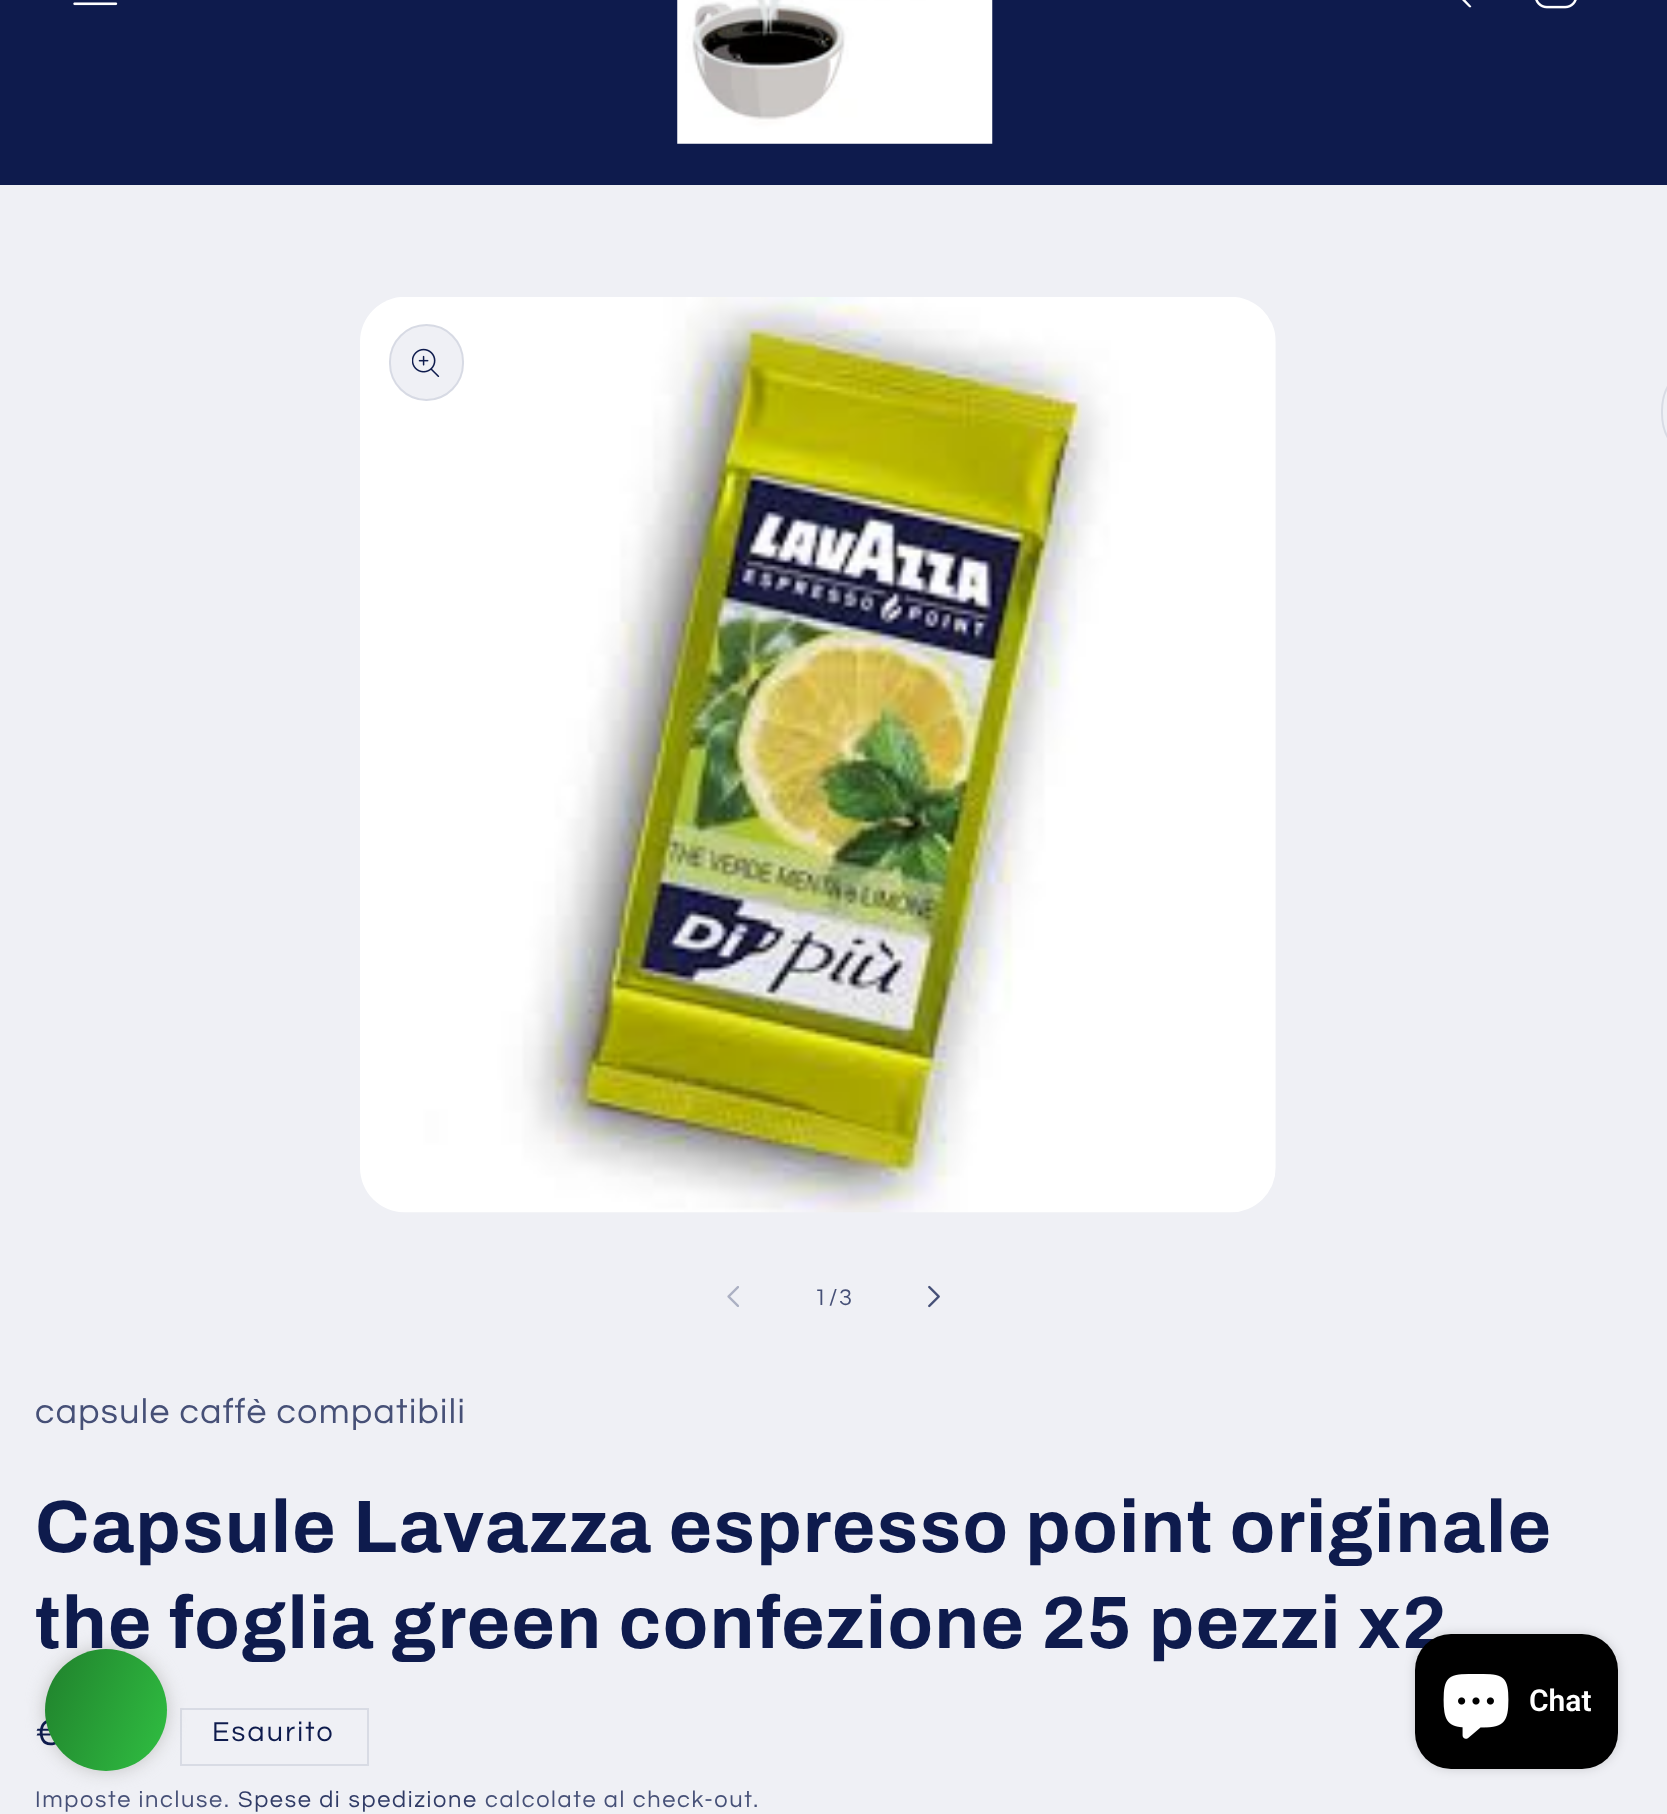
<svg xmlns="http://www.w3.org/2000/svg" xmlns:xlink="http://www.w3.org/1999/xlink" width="1667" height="1814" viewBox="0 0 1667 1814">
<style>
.cls-1{font:23.6px Questrial;letter-spacing:1.65px;fill:#465077}
.cls-2{font:35.5px Questrial;letter-spacing:1.4px;fill:#465077}
.cls-3{font:bold 74.25px Archivo;letter-spacing:1.5px;fill:#0e1b4d}
.cls-4{font:38px Questrial;letter-spacing:3px;fill:#0e1b4d}
.cls-5{font:28.5px Questrial;letter-spacing:2.25px;fill:#0e1b4d}
.cls-6{font:23.6px Questrial;letter-spacing:1.65px;fill:#303b66}
.cls-7{font:600 30px Roboto;fill:#ffffff}
</style>
<defs>
<linearGradient id="g1" gradientUnits="userSpaceOnUse" x1="32" y1="1680" x2="179" y2="1740"><stop offset="0" stop-color="#20802c"/><stop offset="0" stop-color="#20802c"/><stop offset="1" stop-color="#30bf42"/></linearGradient>
</defs>
<rect width="100%" height="100%" fill="#eff0f5"/>
<rect fill="#0e1b4d" x="0" y="0" width="1667" height="185"/>
<image xlink:href="image0.png" x="73" y="2" width="45" height="4"/>
<image xlink:href="image1.png" x="677" y="0" width="316" height="144"/>
<path fill="#ffffff" fill-rule="evenodd" d="M1455-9C1442 4 1421-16 1435-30C1448-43 1469-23 1455-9M1456-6C1439 7 1418-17 1433-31C1449-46 1472-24 1458-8L1471 6C1472 7 1470 8 1469 7Z"/>
<image xlink:href="image2.png" x="1535" y="0" width="42" height="9"/>
<image xlink:href="image3.png" x="360" y="297" width="916" height="916"/>
<rect fill="#eff0f5" x="389" y="324" width="75" height="77" rx="37.5"/>
<rect fill="none" stroke="#0e1b4d" stroke-opacity="0.1" stroke-width="2" x="390" y="325" width="73" height="75" rx="36.5"/>
<image xlink:href="image4.png" x="412" y="348" width="28" height="29"/>
<rect fill="none" stroke="#d8dbe4" stroke-width="2" x="1662" y="375" width="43" height="74" rx="36"/>
<image xlink:href="image5.png" x="727" y="1286" width="12" height="21"/>
<image xlink:href="image6.png" x="928" y="1285" width="12" height="23"/>
<rect fill="none" stroke="#d8dbe4" stroke-width="2" x="181" y="1709" width="187" height="56"/>
<rect fill="#c2c2c2" filter="blur(9px)" x="45" y="1649" width="122" height="122" rx="61"/>
<rect fill="#000000" fill-opacity="0.15" filter="blur(5.5px)" x="1415" y="1634" width="203" height="135" rx="36"/>
<text class="cls-1" x="814" y="1305">1/3</text>
<text class="cls-2" x="35" y="1423">capsule caffè compatibili</text>
<text class="cls-3"><tspan x="35" y="1552">Capsule Lavazza espresso point originale</tspan><tspan x="35" y="1648">the foglia green confezione 25 pezzi x2</tspan></text>
<text class="cls-4" x="35" y="1745">€</text>
<text class="cls-5" x="212" y="1741">Esaurito</text>
<text class="cls-1" x="35" y="1807">Imposte incluse.</text>
<text class="cls-6" x="238" y="1807">Spese di spedizione</text>
<text class="cls-1" x="485" y="1807">calcolate al check-out.</text>
<circle fill="url(#g1)" cx="106" cy="1710" r="61"/>
<rect fill="#000000" x="1415" y="1634" width="203" height="135" rx="36"/>
<image xlink:href="image7.png" x="1443" y="1674" width="66" height="65"/>
<text class="cls-7" x="1529" y="1711">Chat</text>
</svg>
